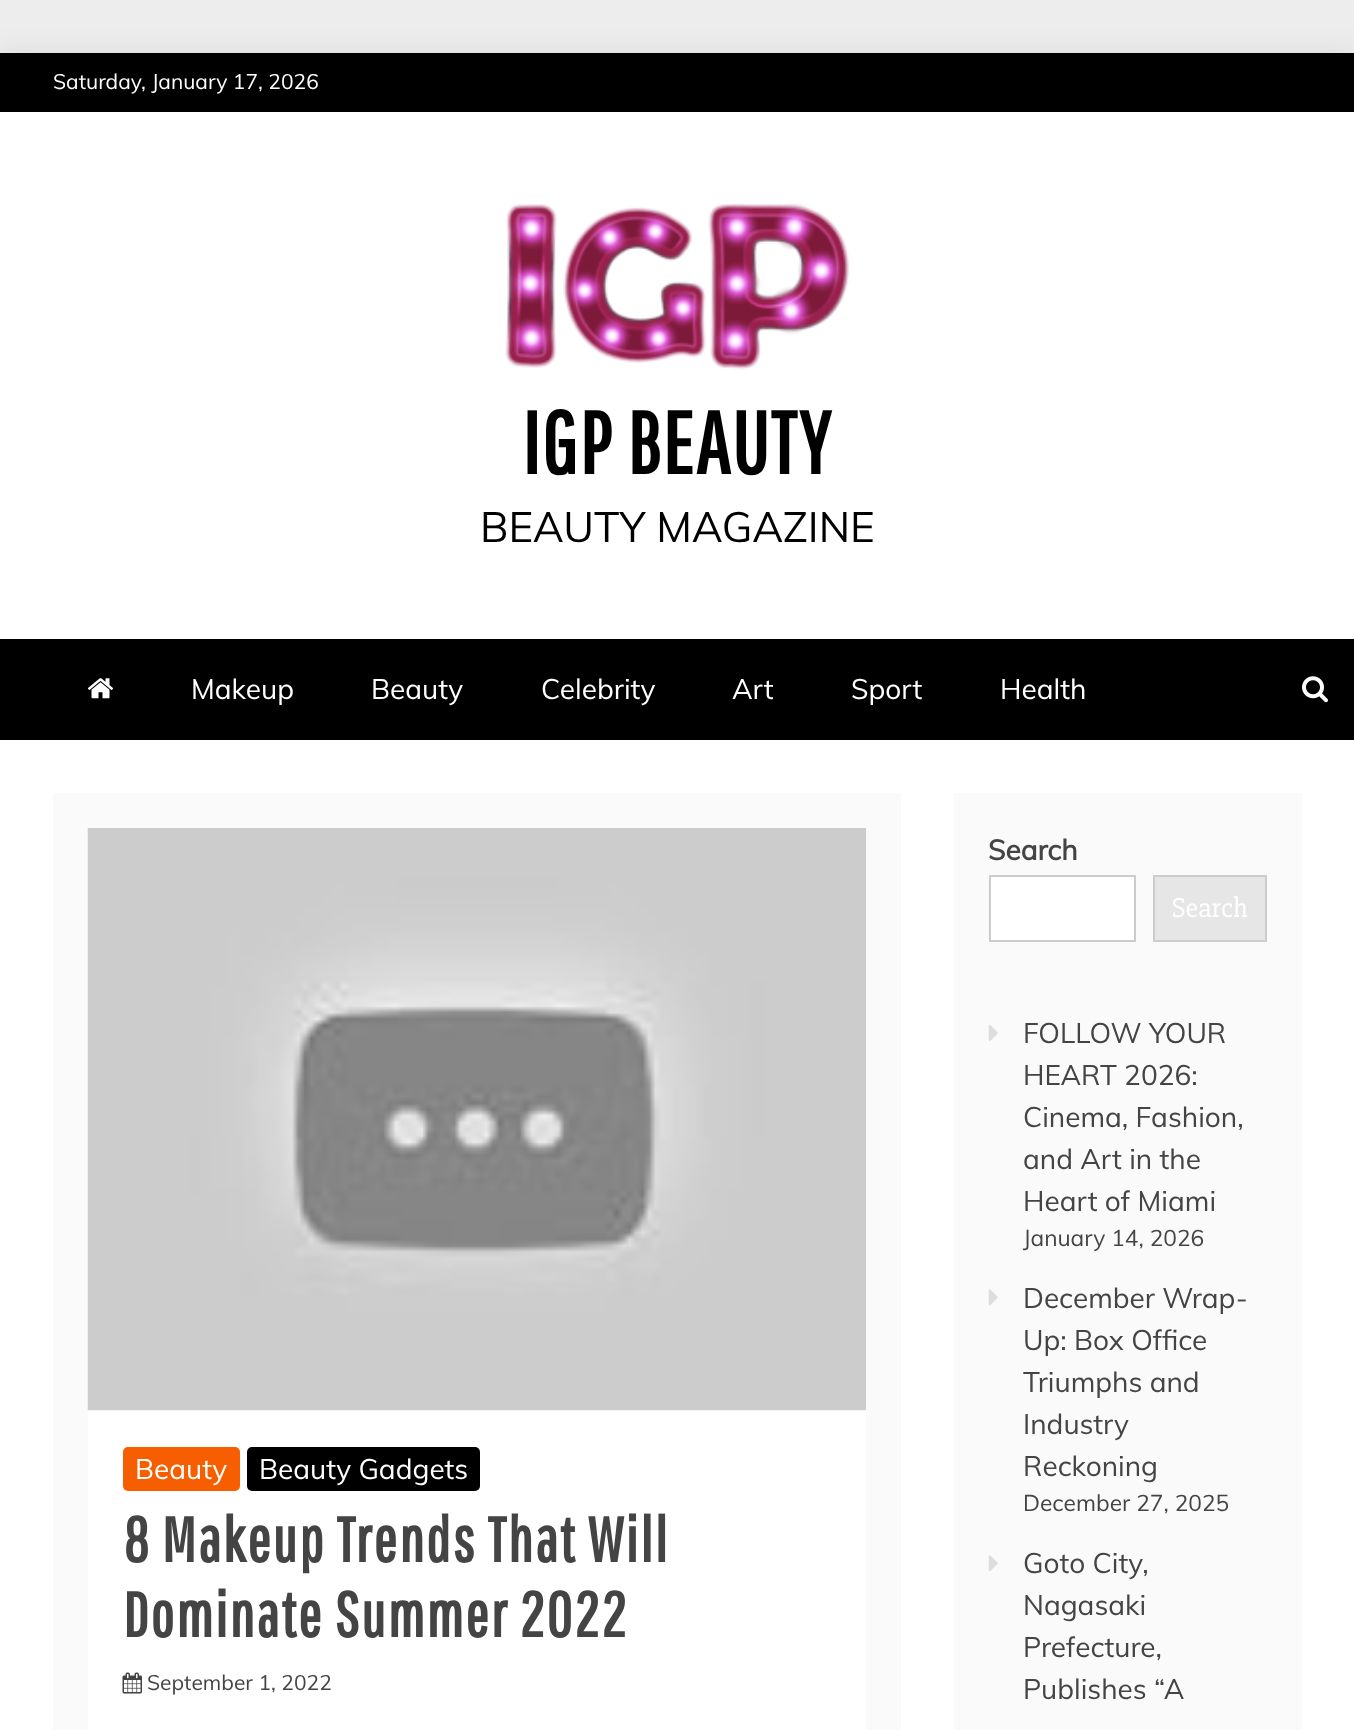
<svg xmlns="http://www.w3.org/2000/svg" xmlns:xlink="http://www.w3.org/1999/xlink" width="1354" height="1730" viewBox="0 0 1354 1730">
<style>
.cls-1{font:21px Muli;fill:#ffffff}
.cls-2{font:bold 87.5px Pathway Gothic One;letter-spacing:1.75px;fill:#000000}
.cls-3{font:42px Muli;fill:#000000}
.cls-4{font:28px Muli;fill:#ffffff}
.cls-5{font:bold 63px Pathway Gothic One;letter-spacing:1.75px;fill:#444444}
.cls-6{font:21px Muli;fill:#444444}
.cls-7{font:bold 28px Muli;fill:#444444}
.cls-8{font:28px 'Slabo 27px';fill:#ffffff}
.cls-9{font:28px Muli;fill:#444444}
.cls-10{font:22.75px Muli;fill:#444444}
</style>
<rect width="100%" height="100%" fill="#ededed"/>
<rect fill="#000000" fill-opacity="0.1" filter="blur(16.5px)" x="-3" y="58" width="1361" height="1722"/>
<rect fill="#ffffff" x="0" y="112" width="1354" height="1618"/>
<rect fill="#000000" x="0" y="53" width="1354" height="59"/>
<image xlink:href="image0.png" x="505" y="203" width="345" height="167"/>
<rect fill="#000000" x="0" y="639" width="1354" height="101"/>
<image xlink:href="image1.png" x="87" y="678" width="27" height="21"/>
<image xlink:href="image2.png" x="1302" y="676" width="26" height="27"/>
<rect fill="#fafafa" x="53" y="793" width="848" height="937"/>
<rect fill="#ffffff" x="88" y="1410" width="778" height="320"/>
<image xlink:href="image3.png" x="87" y="828" width="779" height="583"/>
<rect fill="#f75e00" x="123" y="1447" width="117" height="44" rx="5"/>
<rect fill="#000000" x="247" y="1447" width="233" height="44" rx="5"/>
<image xlink:href="image4.png" x="122" y="1672" width="20" height="22"/>
<rect fill="#fafafa" x="954" y="793" width="348" height="937"/>
<rect fill="#ffffff" stroke="#cccccc" stroke-width="2" x="990" y="876" width="145" height="65"/>
<rect fill="#e6e6e6" stroke="#cccccc" stroke-width="2" x="1154" y="876" width="112" height="65"/>
<image xlink:href="image5.png" x="988" y="1025" width="10" height="16"/>
<image xlink:href="image6.png" x="988" y="1289" width="10" height="17"/>
<image xlink:href="image6.png" x="988" y="1555" width="10" height="17"/>
<text class="cls-1" x="53" y="89">Saturday, January 17, 2026</text>
<text class="cls-2" x="522" y="474">IGP BEAUTY</text>
<text class="cls-3" x="480" y="542">BEAUTY MAGAZINE</text>
<text class="cls-4" x="191" y="699">Makeup</text>
<text class="cls-4" x="371" y="699">Beauty</text>
<text class="cls-4" x="541" y="699">Celebrity</text>
<text class="cls-4" x="732" y="699">Art</text>
<text class="cls-4" x="851" y="699">Sport</text>
<text class="cls-4" x="1000" y="699">Health</text>
<text class="cls-4" x="135" y="1479">Beauty</text>
<text class="cls-4" x="259" y="1479">Beauty Gadgets</text>
<text class="cls-5"><tspan x="123" y="1562">8 Makeup Trends That Will</tspan><tspan x="123" y="1637">Dominate Summer 2022</tspan></text>
<text class="cls-6" x="147" y="1690">September 1, 2022</text>
<text class="cls-7" x="988" y="860">Search</text>
<text class="cls-8" x="1172" y="917">Search</text>
<text class="cls-9"><tspan x="1023" y="1043">FOLLOW YOUR</tspan><tspan x="1023" y="1085">HEART 2026:</tspan><tspan x="1023" y="1127">Cinema, Fashion,</tspan><tspan x="1023" y="1169">and Art in the</tspan><tspan x="1023" y="1211">Heart of Miami</tspan></text>
<text class="cls-10" x="1023" y="1246">January 14, 2026</text>
<text class="cls-9"><tspan x="1023" y="1308">December Wrap-</tspan><tspan x="1023" y="1350">Up: Box Office</tspan><tspan x="1023" y="1392">Triumphs and</tspan><tspan x="1023" y="1434">Industry</tspan><tspan x="1023" y="1476">Reckoning</tspan></text>
<text class="cls-10" x="1023" y="1511">December 27, 2025</text>
<text class="cls-9"><tspan x="1023" y="1573">Goto City,</tspan><tspan x="1023" y="1615">Nagasaki</tspan><tspan x="1023" y="1657">Prefecture,</tspan><tspan x="1023" y="1699">Publishes “A</tspan></text>
</svg>
